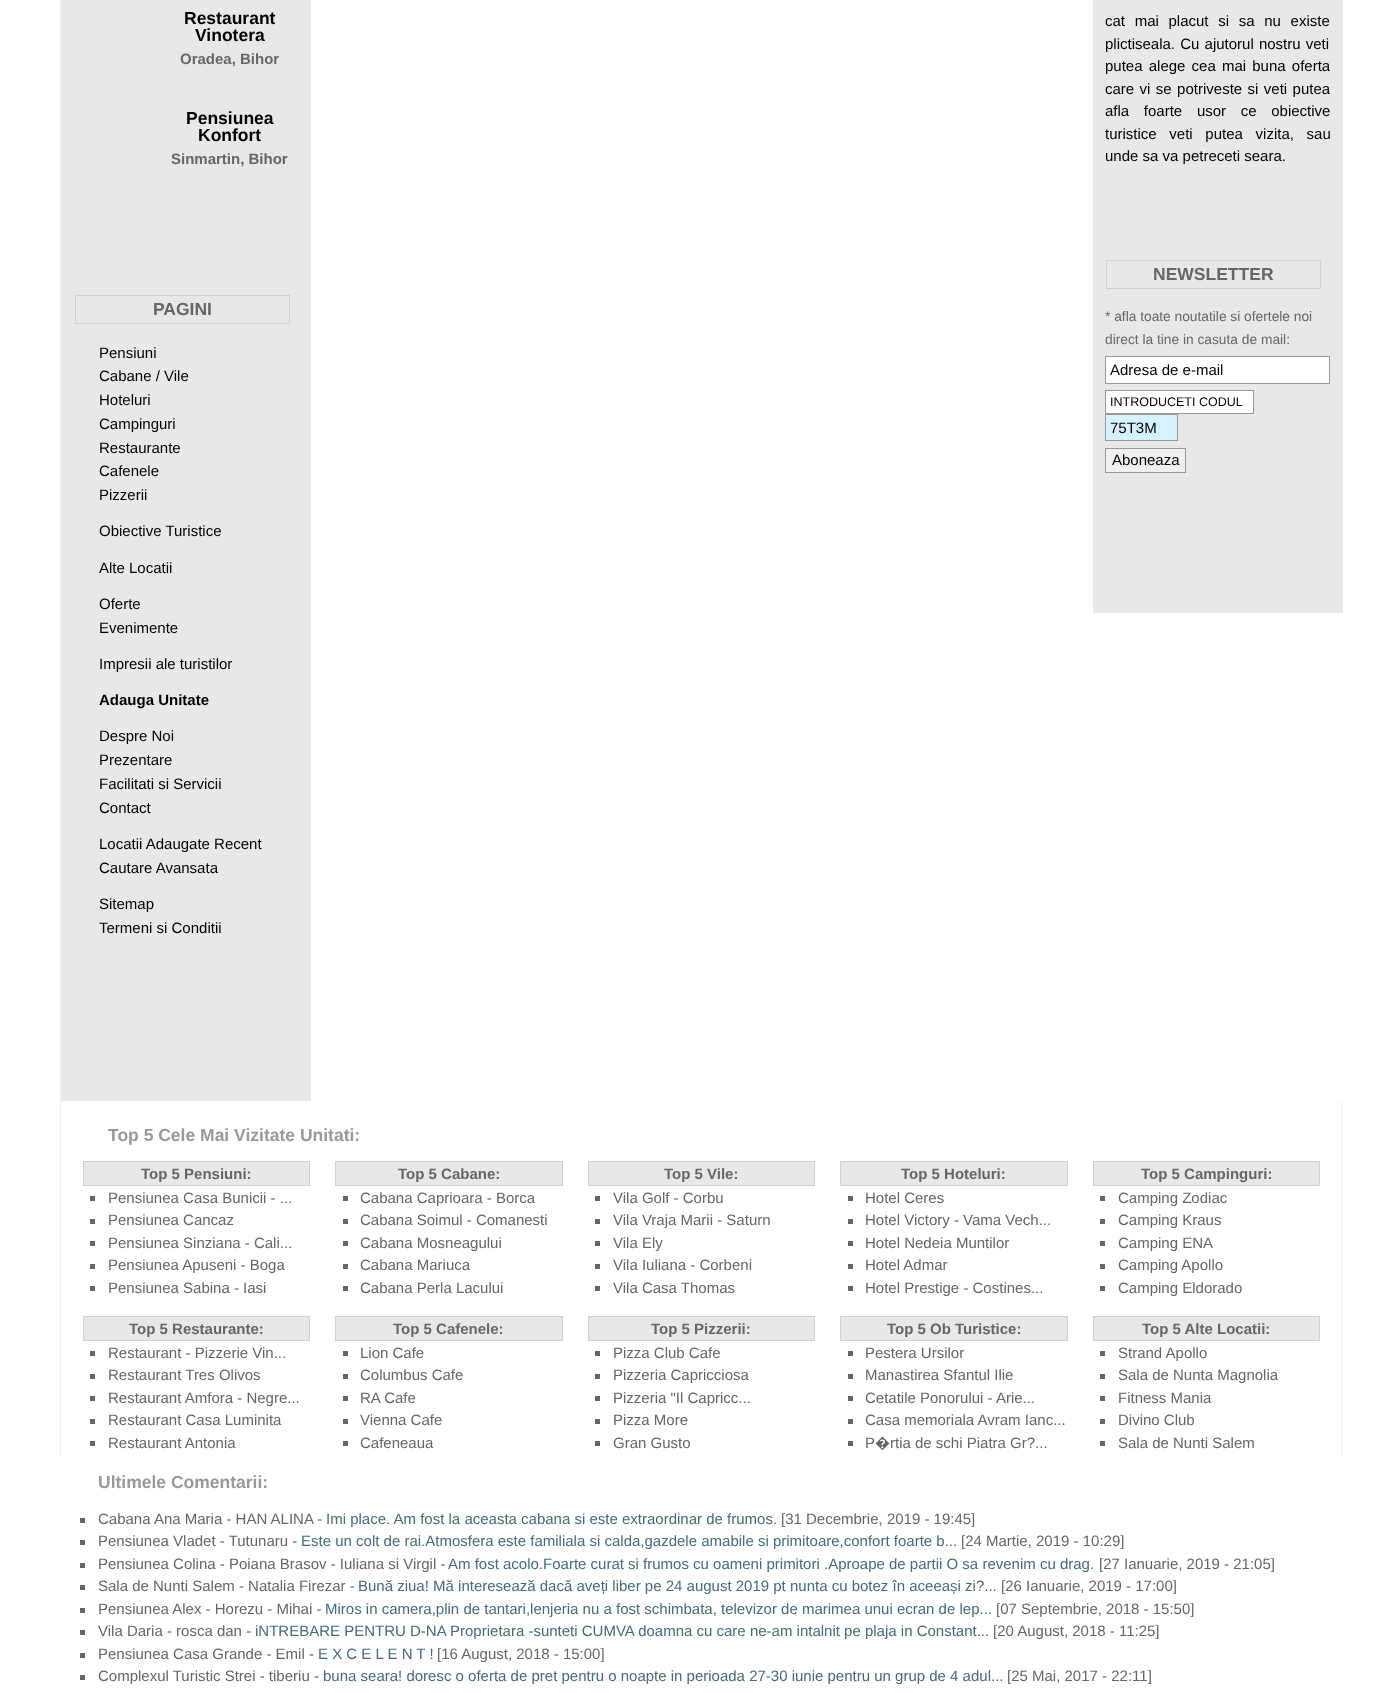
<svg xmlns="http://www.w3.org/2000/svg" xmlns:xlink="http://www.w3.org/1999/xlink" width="1400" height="1693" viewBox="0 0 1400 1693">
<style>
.cls-1{font:bold 17.5px Liberation Sans;fill:#000000}
.cls-2{font:bold 15px Liberation Sans;fill:#666666}
.cls-3{font:bold 17.5px Liberation Sans;fill:#666666}
.cls-4{font:15px Liberation Sans;fill:#000000}
.cls-5{font:bold 15px Liberation Sans;fill:#000000}
.cls-6{font:13.75px Liberation Sans;fill:#666666}
.cls-7{font:12.5px Liberation Sans;fill:#000000}
.cls-8{font:bold 17.5px Liberation Sans;fill:#999999}
.cls-9{font:15px Liberation Sans;fill:#666666}
.cls-10{font:15px Noto Sans;fill:#666666}
.cls-11{font:15px Liberation Sans;fill:#466b7b}
</style>
<rect width="100%" height="100%" fill="#ffffff"/>
<rect fill="#f0f0f0" x="60" y="0" width="1" height="1456"/>
<rect fill="#e8e8e8" x="61" y="0" width="250" height="1101"/>
<rect fill="none" stroke="#d1d1d1" x="75.5" y="295.5" width="214" height="28"/>
<rect fill="#e8e8e8" x="1093" y="0" width="250" height="613"/>
<rect fill="none" stroke="#d1d1d1" x="1106.5" y="260.5" width="214" height="28"/>
<rect fill="#ffffff" stroke="#999999" x="1105.5" y="356.5" width="224" height="27"/>
<rect fill="#ffffff" stroke="#999999" x="1105.5" y="390.5" width="148" height="23"/>
<rect fill="#d7f2ff" stroke="#999999" x="1105.5" y="414.5" width="72" height="26"/>
<rect fill="#efefef" stroke="#999999" x="1105.5" y="448.5" width="80" height="24"/>
<rect fill="#f0f0f0" x="1341" y="1101" width="1" height="355"/>
<rect fill="#e8e8e8" stroke="#d1d1d1" x="83.5" y="1161.5" width="226" height="24"/>
<rect fill="#666666" x="90" y="1196" width="5" height="5"/>
<rect fill="#666666" x="90" y="1219" width="5" height="5"/>
<rect fill="#666666" x="90" y="1241" width="5" height="5"/>
<rect fill="#666666" x="90" y="1264" width="5" height="5"/>
<rect fill="#666666" x="90" y="1286" width="5" height="5"/>
<rect fill="#e8e8e8" stroke="#d1d1d1" x="335.5" y="1161.5" width="227" height="24"/>
<rect fill="#666666" x="343" y="1196" width="5" height="5"/>
<rect fill="#666666" x="343" y="1219" width="5" height="5"/>
<rect fill="#666666" x="343" y="1241" width="5" height="5"/>
<rect fill="#666666" x="343" y="1264" width="5" height="5"/>
<rect fill="#666666" x="343" y="1286" width="5" height="5"/>
<rect fill="#e8e8e8" stroke="#d1d1d1" x="588.5" y="1161.5" width="226" height="24"/>
<rect fill="#666666" x="595" y="1196" width="5" height="5"/>
<rect fill="#666666" x="595" y="1219" width="5" height="5"/>
<rect fill="#666666" x="595" y="1241" width="5" height="5"/>
<rect fill="#666666" x="595" y="1264" width="5" height="5"/>
<rect fill="#666666" x="595" y="1286" width="5" height="5"/>
<rect fill="#e8e8e8" stroke="#d1d1d1" x="840.5" y="1161.5" width="227" height="24"/>
<rect fill="#666666" x="848" y="1196" width="5" height="5"/>
<rect fill="#666666" x="848" y="1219" width="5" height="5"/>
<rect fill="#666666" x="848" y="1241" width="5" height="5"/>
<rect fill="#666666" x="848" y="1264" width="5" height="5"/>
<rect fill="#666666" x="848" y="1286" width="5" height="5"/>
<rect fill="#e8e8e8" stroke="#d1d1d1" x="1093.5" y="1161.5" width="226" height="24"/>
<rect fill="#666666" x="1100" y="1196" width="5" height="5"/>
<rect fill="#666666" x="1100" y="1219" width="5" height="5"/>
<rect fill="#666666" x="1100" y="1241" width="5" height="5"/>
<rect fill="#666666" x="1100" y="1264" width="5" height="5"/>
<rect fill="#666666" x="1100" y="1286" width="5" height="5"/>
<rect fill="#e8e8e8" stroke="#d1d1d1" x="83.5" y="1316.5" width="226" height="24"/>
<rect fill="#666666" x="90" y="1351" width="5" height="5"/>
<rect fill="#666666" x="90" y="1374" width="5" height="5"/>
<rect fill="#666666" x="90" y="1396" width="5" height="5"/>
<rect fill="#666666" x="90" y="1419" width="5" height="5"/>
<rect fill="#666666" x="90" y="1441" width="5" height="5"/>
<rect fill="#e8e8e8" stroke="#d1d1d1" x="335.5" y="1316.5" width="227" height="24"/>
<rect fill="#666666" x="343" y="1351" width="5" height="5"/>
<rect fill="#666666" x="343" y="1374" width="5" height="5"/>
<rect fill="#666666" x="343" y="1396" width="5" height="5"/>
<rect fill="#666666" x="343" y="1419" width="5" height="5"/>
<rect fill="#666666" x="343" y="1441" width="5" height="5"/>
<rect fill="#e8e8e8" stroke="#d1d1d1" x="588.5" y="1316.5" width="226" height="24"/>
<rect fill="#666666" x="595" y="1351" width="5" height="5"/>
<rect fill="#666666" x="595" y="1374" width="5" height="5"/>
<rect fill="#666666" x="595" y="1396" width="5" height="5"/>
<rect fill="#666666" x="595" y="1419" width="5" height="5"/>
<rect fill="#666666" x="595" y="1441" width="5" height="5"/>
<rect fill="#e8e8e8" stroke="#d1d1d1" x="840.5" y="1316.5" width="227" height="24"/>
<rect fill="#666666" x="848" y="1351" width="5" height="5"/>
<rect fill="#666666" x="848" y="1374" width="5" height="5"/>
<rect fill="#666666" x="848" y="1396" width="5" height="5"/>
<rect fill="#666666" x="848" y="1419" width="5" height="5"/>
<rect fill="#666666" x="848" y="1441" width="5" height="5"/>
<rect fill="#e8e8e8" stroke="#d1d1d1" x="1093.5" y="1316.5" width="226" height="24"/>
<rect fill="#666666" x="1100" y="1351" width="5" height="5"/>
<rect fill="#666666" x="1100" y="1374" width="5" height="5"/>
<rect fill="#666666" x="1100" y="1396" width="5" height="5"/>
<rect fill="#666666" x="1100" y="1419" width="5" height="5"/>
<rect fill="#666666" x="1100" y="1441" width="5" height="5"/>
<rect fill="#666666" x="80" y="1518" width="5" height="5"/>
<rect fill="#666666" x="80" y="1540" width="5" height="5"/>
<rect fill="#666666" x="80" y="1563" width="5" height="5"/>
<rect fill="#666666" x="80" y="1585" width="5" height="5"/>
<rect fill="#666666" x="80" y="1608" width="5" height="5"/>
<rect fill="#666666" x="80" y="1630" width="5" height="5"/>
<rect fill="#666666" x="80" y="1653" width="5" height="5"/>
<rect fill="#666666" x="80" y="1675" width="5" height="5"/>
<text class="cls-1" x="184" y="24">Restaurant</text>
<text class="cls-1" x="195" y="41">Vinotera</text>
<text class="cls-2" x="180" y="64">Oradea, Bihor</text>
<text class="cls-1" x="186" y="124">Pensiunea</text>
<text class="cls-1" x="198" y="141">Konfort</text>
<text class="cls-2" x="171" y="164">Sinmartin, Bihor</text>
<text class="cls-3" x="153" y="315">PAGINI</text>
<text class="cls-4"><tspan x="99" y="358">Pensiuni</tspan><tspan x="99" y="381">Cabane / Vile</tspan><tspan x="99" y="405">Hoteluri</tspan><tspan x="99" y="429">Campinguri</tspan><tspan x="99" y="453">Restaurante</tspan><tspan x="99" y="476">Cafenele</tspan><tspan x="99" y="500">Pizzerii</tspan></text>
<text class="cls-4" x="99" y="536">Obiective Turistice</text>
<text class="cls-4" x="99" y="573">Alte Locatii</text>
<text class="cls-4"><tspan x="99" y="609">Oferte</tspan><tspan x="99" y="633">Evenimente</tspan></text>
<text class="cls-4" x="99" y="669">Impresii ale turistilor</text>
<text class="cls-5" x="99" y="705">Adauga Unitate</text>
<text class="cls-4"><tspan x="99" y="741">Despre Noi</tspan><tspan x="99" y="765">Prezentare</tspan><tspan x="99" y="789">Facilitati si Servicii</tspan><tspan x="99" y="813">Contact</tspan></text>
<text class="cls-4"><tspan x="99" y="849">Locatii Adaugate Recent</tspan><tspan x="99" y="873">Cautare Avansata</tspan></text>
<text class="cls-4"><tspan x="99" y="909">Sitemap</tspan><tspan x="99" y="933">Termeni si Conditii</tspan></text>
<text class="cls-4"><tspan x="1105" y="26" word-spacing="5.5">cat mai placut si sa nu existe</tspan><tspan x="1105" y="49" word-spacing="1">plictiseala. Cu ajutorul nostru veti</tspan><tspan x="1105" y="71" word-spacing="2">putea alege cea mai buna oferta</tspan><tspan x="1105" y="94" word-spacing="1.25">care vi se potriveste si veti putea</tspan><tspan x="1105" y="116" word-spacing="10.5">afla foarte usor ce obiective</tspan><tspan x="1105" y="139" word-spacing="8.5">turistice veti putea vizita, sau</tspan><tspan x="1105" y="161">unde sa va petreceti seara.</tspan></text>
<text class="cls-3" x="1153" y="280">NEWSLETTER</text>
<text class="cls-6"><tspan x="1105" y="321">* afla toate noutatile si ofertele noi</tspan><tspan x="1105" y="344">direct la tine in casuta de mail:</tspan></text>
<text class="cls-4" x="1110" y="375">Adresa de e-mail</text>
<text class="cls-7" x="1110" y="406">INTRODUCETI CODUL</text>
<text class="cls-4" x="1110" y="433">75T3M</text>
<text class="cls-4" x="1112" y="465">Aboneaza</text>
<text class="cls-8" x="108" y="1141">Top 5 Cele Mai Vizitate Unitati:</text>
<text class="cls-2" x="141" y="1179">Top 5 Pensiuni:</text>
<text class="cls-9"><tspan x="108" y="1203">Pensiunea Casa Bunicii - ...</tspan><tspan x="108" y="1225">Pensiunea Cancaz</tspan><tspan x="108" y="1248">Pensiunea Sinziana - Cali...</tspan><tspan x="108" y="1270">Pensiunea Apuseni - Boga</tspan><tspan x="108" y="1293">Pensiunea Sabina - Iasi</tspan></text>
<text class="cls-2" x="398" y="1179">Top 5 Cabane:</text>
<text class="cls-9"><tspan x="360" y="1203">Cabana Caprioara - Borca</tspan><tspan x="360" y="1225">Cabana Soimul - Comanesti</tspan><tspan x="360" y="1248">Cabana Mosneagului</tspan><tspan x="360" y="1270">Cabana Mariuca</tspan><tspan x="360" y="1293">Cabana Perla Lacului</tspan></text>
<text class="cls-2" x="664" y="1179">Top 5 Vile:</text>
<text class="cls-9"><tspan x="613" y="1203">Vila Golf - Corbu</tspan><tspan x="613" y="1225">Vila Vraja Marii - Saturn</tspan><tspan x="613" y="1248">Vila Ely</tspan><tspan x="613" y="1270">Vila Iuliana - Corbeni</tspan><tspan x="613" y="1293">Vila Casa Thomas</tspan></text>
<text class="cls-2" x="901" y="1179">Top 5 Hoteluri:</text>
<text class="cls-9"><tspan x="865" y="1203">Hotel Ceres</tspan><tspan x="865" y="1225">Hotel Victory - Vama Vech...</tspan><tspan x="865" y="1248">Hotel Nedeia Muntilor</tspan><tspan x="865" y="1270">Hotel Admar</tspan><tspan x="865" y="1293">Hotel Prestige - Costines...</tspan></text>
<text class="cls-2" x="1141" y="1179">Top 5 Campinguri:</text>
<text class="cls-9"><tspan x="1118" y="1203">Camping Zodiac</tspan><tspan x="1118" y="1225">Camping Kraus</tspan><tspan x="1118" y="1248">Camping ENA</tspan><tspan x="1118" y="1270">Camping Apollo</tspan><tspan x="1118" y="1293">Camping Eldorado</tspan></text>
<text class="cls-2" x="129" y="1334">Top 5 Restaurante:</text>
<text class="cls-9"><tspan x="108" y="1358">Restaurant - Pizzerie Vin...</tspan><tspan x="108" y="1380">Restaurant Tres Olivos</tspan><tspan x="108" y="1403">Restaurant Amfora - Negre...</tspan><tspan x="108" y="1425">Restaurant Casa Luminita</tspan><tspan x="108" y="1448">Restaurant Antonia</tspan></text>
<text class="cls-2" x="393" y="1334">Top 5 Cafenele:</text>
<text class="cls-9"><tspan x="360" y="1358">Lion Cafe</tspan><tspan x="360" y="1380">Columbus Cafe</tspan><tspan x="360" y="1403">RA Cafe</tspan><tspan x="360" y="1425">Vienna Cafe</tspan><tspan x="360" y="1448">Cafeneaua</tspan></text>
<text class="cls-2" x="651" y="1334">Top 5 Pizzerii:</text>
<text class="cls-9"><tspan x="613" y="1358">Pizza Club Cafe</tspan><tspan x="613" y="1380">Pizzeria Capricciosa</tspan><tspan x="613" y="1403">Pizzeria "Il Capricc...</tspan><tspan x="613" y="1425">Pizza More</tspan><tspan x="613" y="1448">Gran Gusto</tspan></text>
<text class="cls-2" x="887" y="1334">Top 5 Ob Turistice:</text>
<text class="cls-9"><tspan x="865" y="1358">Pestera Ursilor</tspan><tspan x="865" y="1380">Manastirea Sfantul Ilie</tspan><tspan x="865" y="1403">Cetatile Ponorului - Arie...</tspan><tspan x="865" y="1425">Casa memoriala Avram Ianc...</tspan><tspan x="865" y="1448">P</tspan></text>
<text class="cls-10" x="875" y="1448">�</text>
<text class="cls-9" x="890" y="1448">rtia de schi Piatra Gr?...</text>
<text class="cls-2" x="1142" y="1334">Top 5 Alte Locatii:</text>
<text class="cls-9"><tspan x="1118" y="1358">Strand Apollo</tspan><tspan x="1118" y="1380">Sala de Nunta Magnolia</tspan><tspan x="1118" y="1403">Fitness Mania</tspan><tspan x="1118" y="1425">Divino Club</tspan><tspan x="1118" y="1448">Sala de Nunti Salem</tspan></text>
<text class="cls-8" x="98" y="1488">Ultimele Comentarii:</text>
<text class="cls-9" x="98" y="1524">Cabana Ana Maria - HAN ALINA -</text>
<text class="cls-11" x="326" y="1524">Imi place. Am fost la aceasta cabana si este extraordinar de frumos.</text>
<text class="cls-9" x="781" y="1524">[31 Decembrie, 2019 - 19:45]</text>
<text class="cls-9" x="98" y="1546">Pensiunea Vladet - Tutunaru -</text>
<text class="cls-11" x="301" y="1546">Este un colt de rai.Atmosfera este familiala si calda,gazdele amabile si primitoare,confort foarte b...</text>
<text class="cls-9" x="961" y="1546">[24 Martie, 2019 - 10:29]</text>
<text class="cls-9" x="98" y="1569">Pensiunea Colina - Poiana Brasov - Iuliana si Virgil -</text>
<text class="cls-11" x="448" y="1569">Am fost acolo.Foarte curat si frumos cu oameni primitori .Aproape de partii O sa revenim cu drag.</text>
<text class="cls-9" x="1099" y="1569">[27 Ianuarie, 2019 - 21:05]</text>
<text class="cls-9" x="98" y="1591">Sala de Nunti Salem - Natalia Firezar -</text>
<text class="cls-11" x="358" y="1591">Bună ziua! Mă interesează dacă aveți liber pe 24 august 2019 pt nunta cu botez în aceeași zi?...</text>
<text class="cls-9" x="1001" y="1591">[26 Ianuarie, 2019 - 17:00]</text>
<text class="cls-9" x="98" y="1614">Pensiunea Alex - Horezu - Mihai -</text>
<text class="cls-11" x="325" y="1614">Miros in camera,plin de tantari,lenjeria nu a fost schimbata, televizor de marimea unui ecran de lep...</text>
<text class="cls-9" x="996" y="1614">[07 Septembrie, 2018 - 15:50]</text>
<text class="cls-9" x="98" y="1636">Vila Daria - rosca dan -</text>
<text class="cls-11" x="255" y="1636">iNTREBARE PENTRU D-NA Proprietara -sunteti CUMVA doamna cu care ne-am intalnit pe plaja in Constant...</text>
<text class="cls-9" x="993" y="1636">[20 August, 2018 - 11:25]</text>
<text class="cls-9" x="98" y="1659">Pensiunea Casa Grande - Emil -</text>
<text class="cls-11" x="318" y="1659">E X C E L E N T !</text>
<text class="cls-9" x="437" y="1659">[16 August, 2018 - 15:00]</text>
<text class="cls-9" x="98" y="1681">Complexul Turistic Strei - tiberiu -</text>
<text class="cls-11" x="323" y="1681">buna seara! doresc o oferta de pret pentru o noapte in perioada 27-30 iunie pentru un grup de 4 adul...</text>
<text class="cls-9" x="1007" y="1681">[25 Mai, 2017 - 22:11]</text>
</svg>
